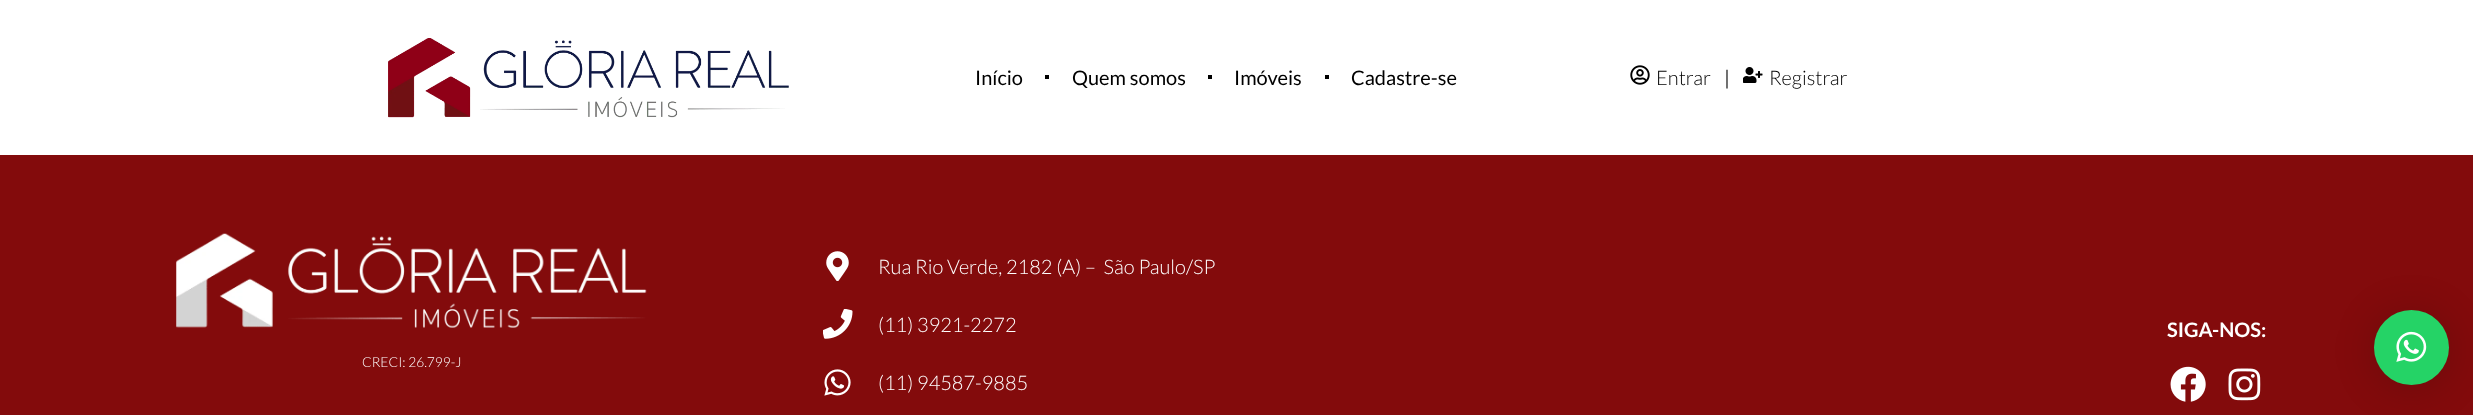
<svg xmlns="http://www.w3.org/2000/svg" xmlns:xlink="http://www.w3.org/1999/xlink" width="2473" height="415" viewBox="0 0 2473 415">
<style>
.cls-1{font:20px Lato;fill:#000000}
.cls-2{font:300 20px Lato;fill:#000000}
.cls-3{font:20px Lato;fill:#333333}
.cls-4{font:300 20px Lato;fill:#ffffff}
.cls-5{font:bold 20px Lato;fill:#ffffff}
.cls-6{font:300 13.75px Lato;fill:#ffffff}
</style>
<rect width="100%" height="100%" fill="#ffffff"/>
<image xlink:href="image0.png" x="388" y="38" width="401" height="80"/>
<rect fill="#000000" x="1045" y="75" width="4" height="4"/>
<rect fill="#000000" x="1208" y="75" width="4" height="4"/>
<rect fill="#000000" x="1325" y="75" width="4" height="4"/>
<image xlink:href="image1.png" x="1630" y="65" width="20" height="20"/>
<image xlink:href="image2.png" x="1743" y="67" width="20" height="16"/>
<rect fill="#830b0c" x="0" y="155" width="2473" height="260"/>
<image xlink:href="image3.png" x="826" y="251" width="23" height="30"/>
<image xlink:href="image4.png" x="823" y="309" width="30" height="30"/>
<image xlink:href="image5.png" x="824" y="369" width="27" height="27"/>
<image xlink:href="image6.png" x="2170" y="366" width="36" height="36"/>
<image xlink:href="image7.png" x="2228" y="368" width="33" height="33"/>
<image xlink:href="image8.png" x="176" y="233" width="471" height="95"/>
<rect fill="#000000" fill-opacity="0.16" filter="blur(20px)" x="2374" y="313" width="75" height="75" rx="37.5"/>
<circle fill="#25d366" cx="2411.5" cy="347.5" r="37.5"/>
<image xlink:href="image9.png" x="2396" y="331" width="31" height="31"/>
<text class="cls-1" x="975" y="85">Início</text>
<text class="cls-1" x="1072" y="85">Quem somos</text>
<text class="cls-1" x="1234" y="85">Imóveis</text>
<text class="cls-1" x="1351" y="85">Cadastre-se</text>
<text class="cls-2" x="1656" y="85">Entrar</text>
<text class="cls-3" x="1724" y="85">|</text>
<text class="cls-2" x="1769" y="85">Registrar</text>
<text class="cls-4" xml:space="preserve" x="878" y="274">Rua Rio Verde, 2182 (A) –  São Paulo/SP</text>
<text class="cls-4" x="878" y="332">(11) 3921-2272</text>
<text class="cls-4" x="878" y="390">(11) 94587-9885</text>
<text class="cls-5" x="2167" y="337">SIGA-NOS:</text>
<text class="cls-6" x="362" y="367">CRECI: 26.799-J</text>
</svg>
